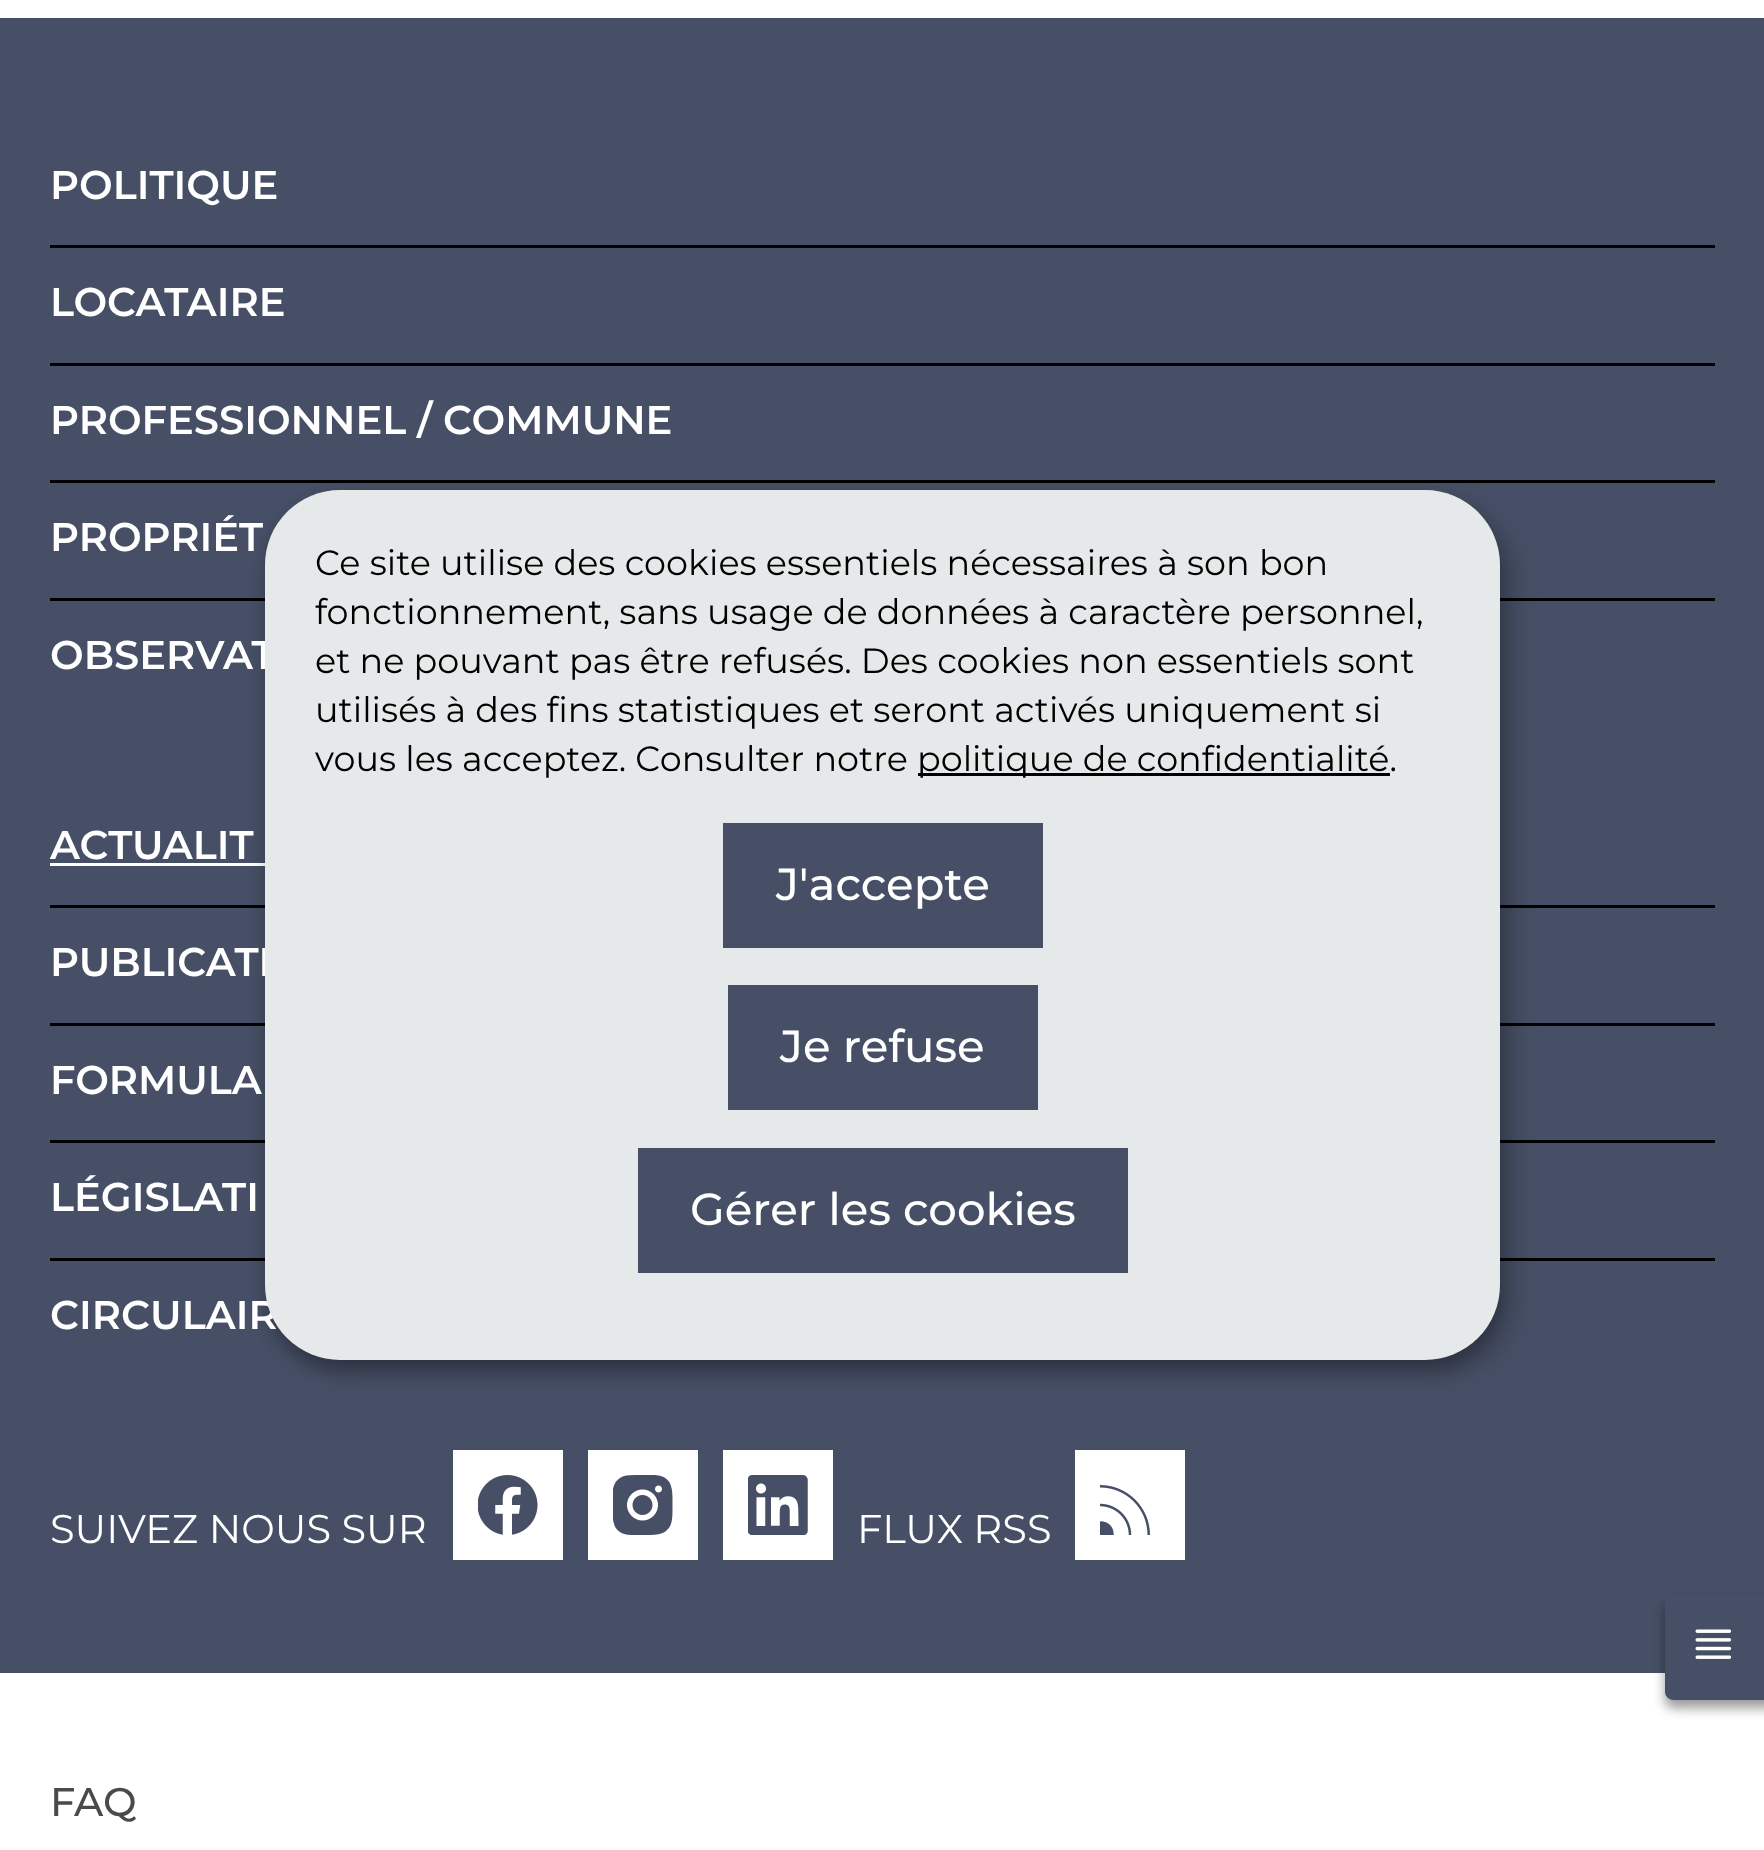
<svg xmlns="http://www.w3.org/2000/svg" xmlns:xlink="http://www.w3.org/1999/xlink" width="1764" height="1850" viewBox="0 0 1764 1850">
<style>
.cls-1{font:600 40px Montserrat;fill:#ffffff}
.cls-2{font:40px Montserrat;fill:#ffffff}
.cls-3{font:500 40px Montserrat;fill:#4a4a4a}
.cls-4{font:35px Montserrat;fill:#000000}
.cls-5{font:500 45px Montserrat;fill:#ffffff}
</style>
<rect width="100%" height="100%" fill="#ffffff"/>
<rect fill="#464f65" x="0" y="18" width="1764" height="1655"/>
<rect fill="#000000" x="50" y="245" width="1665" height="3"/>
<rect fill="#000000" x="50" y="363" width="1665" height="3"/>
<rect fill="#000000" x="50" y="480" width="1665" height="3"/>
<rect fill="#000000" x="50" y="598" width="1665" height="3"/>
<rect fill="#ffffff" x="50" y="863" width="215" height="3"/>
<rect fill="#000000" x="50" y="905" width="1665" height="3"/>
<rect fill="#000000" x="50" y="1023" width="1665" height="3"/>
<rect fill="#000000" x="50" y="1140" width="1665" height="3"/>
<rect fill="#000000" x="50" y="1258" width="1665" height="3"/>
<rect fill="#ffffff" x="453" y="1450" width="110" height="110"/>
<image xlink:href="image0.png" x="478" y="1475" width="60" height="60"/>
<rect fill="#ffffff" x="588" y="1450" width="110" height="110"/>
<image xlink:href="image1.png" x="613" y="1475" width="60" height="60"/>
<rect fill="#ffffff" x="723" y="1450" width="110" height="110"/>
<image xlink:href="image2.png" x="748" y="1475" width="60" height="60"/>
<rect fill="#ffffff" x="1075" y="1450" width="110" height="110"/>
<image xlink:href="image3.png" x="1100" y="1485" width="50" height="50"/>
<rect fill="#000000" fill-opacity="0.4" filter="blur(6px)" x="1665" y="1603" width="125" height="105" rx="8"/>
<path fill="#464f65" stroke="#464f65" stroke-width="3" d="M1673 1596.5H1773.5V1698.5H1673C1669.5 1698.5 1666.5 1695.5 1666.5 1692V1603C1666.5 1599.5 1669.5 1596.5 1673 1596.5Z"/>
<image xlink:href="image4.png" x="1695" y="1629" width="37" height="30"/>
<rect fill="#000000" fill-opacity="0.19" filter="blur(12.5px)" x="278" y="503" width="1235" height="870" rx="75"/>
<rect fill="#000000" fill-opacity="0.2" filter="blur(7.5px)" x="265" y="500" width="1235" height="870" rx="75"/>
<text class="cls-1" x="50" y="199">POLITIQUE</text>
<text class="cls-1" x="50" y="316">LOCATAIRE</text>
<text class="cls-1" x="50" y="434">PROFESSIONNEL / COMMUNE</text>
<text class="cls-1" x="50" y="551">PROPRIÉT</text>
<text class="cls-1" x="50" y="669">OBSERVAT</text>
<text class="cls-1" x="50" y="859">ACTUALIT</text>
<text class="cls-1" x="50" y="976">PUBLICATI</text>
<text class="cls-1" x="50" y="1094">FORMULA</text>
<text class="cls-1" x="50" y="1211">LÉGISLATI</text>
<text class="cls-1" x="50" y="1329">CIRCULAIR</text>
<text class="cls-2" x="50" y="1543">SUIVEZ NOUS SUR</text>
<text class="cls-2" x="857" y="1543">FLUX RSS</text>
<text class="cls-3" x="50" y="1816">FAQ</text>
<rect fill="#e6e9ea" x="265" y="490" width="1235" height="870" rx="75"/>
<text class="cls-4"><tspan x="315" y="575">Ce site utilise des cookies essentiels nécessaires à son bon</tspan><tspan x="315" y="624">fonctionnement, sans usage de données à caractère personnel,</tspan><tspan x="315" y="673">et ne pouvant pas être refusés. Des cookies non essentiels sont</tspan><tspan x="315" y="722">utilisés à des fins statistiques et seront activés uniquement si</tspan><tspan x="315" y="771">vous les acceptez. Consulter notre</tspan></text>
<rect fill="#000000" x="918" y="773" width="472" height="3"/>
<text class="cls-4" x="917" y="771">politique de confidentialité.</text>
<rect fill="#464f65" x="723" y="823" width="320" height="125"/>
<text class="cls-5" x="776" y="900">J'accepte</text>
<rect fill="#464f65" x="728" y="985" width="310" height="125"/>
<text class="cls-5" x="780" y="1062">Je refuse</text>
<rect fill="#464f65" x="638" y="1148" width="490" height="125"/>
<text class="cls-5" x="690" y="1225">Gérer les cookies</text>
</svg>
